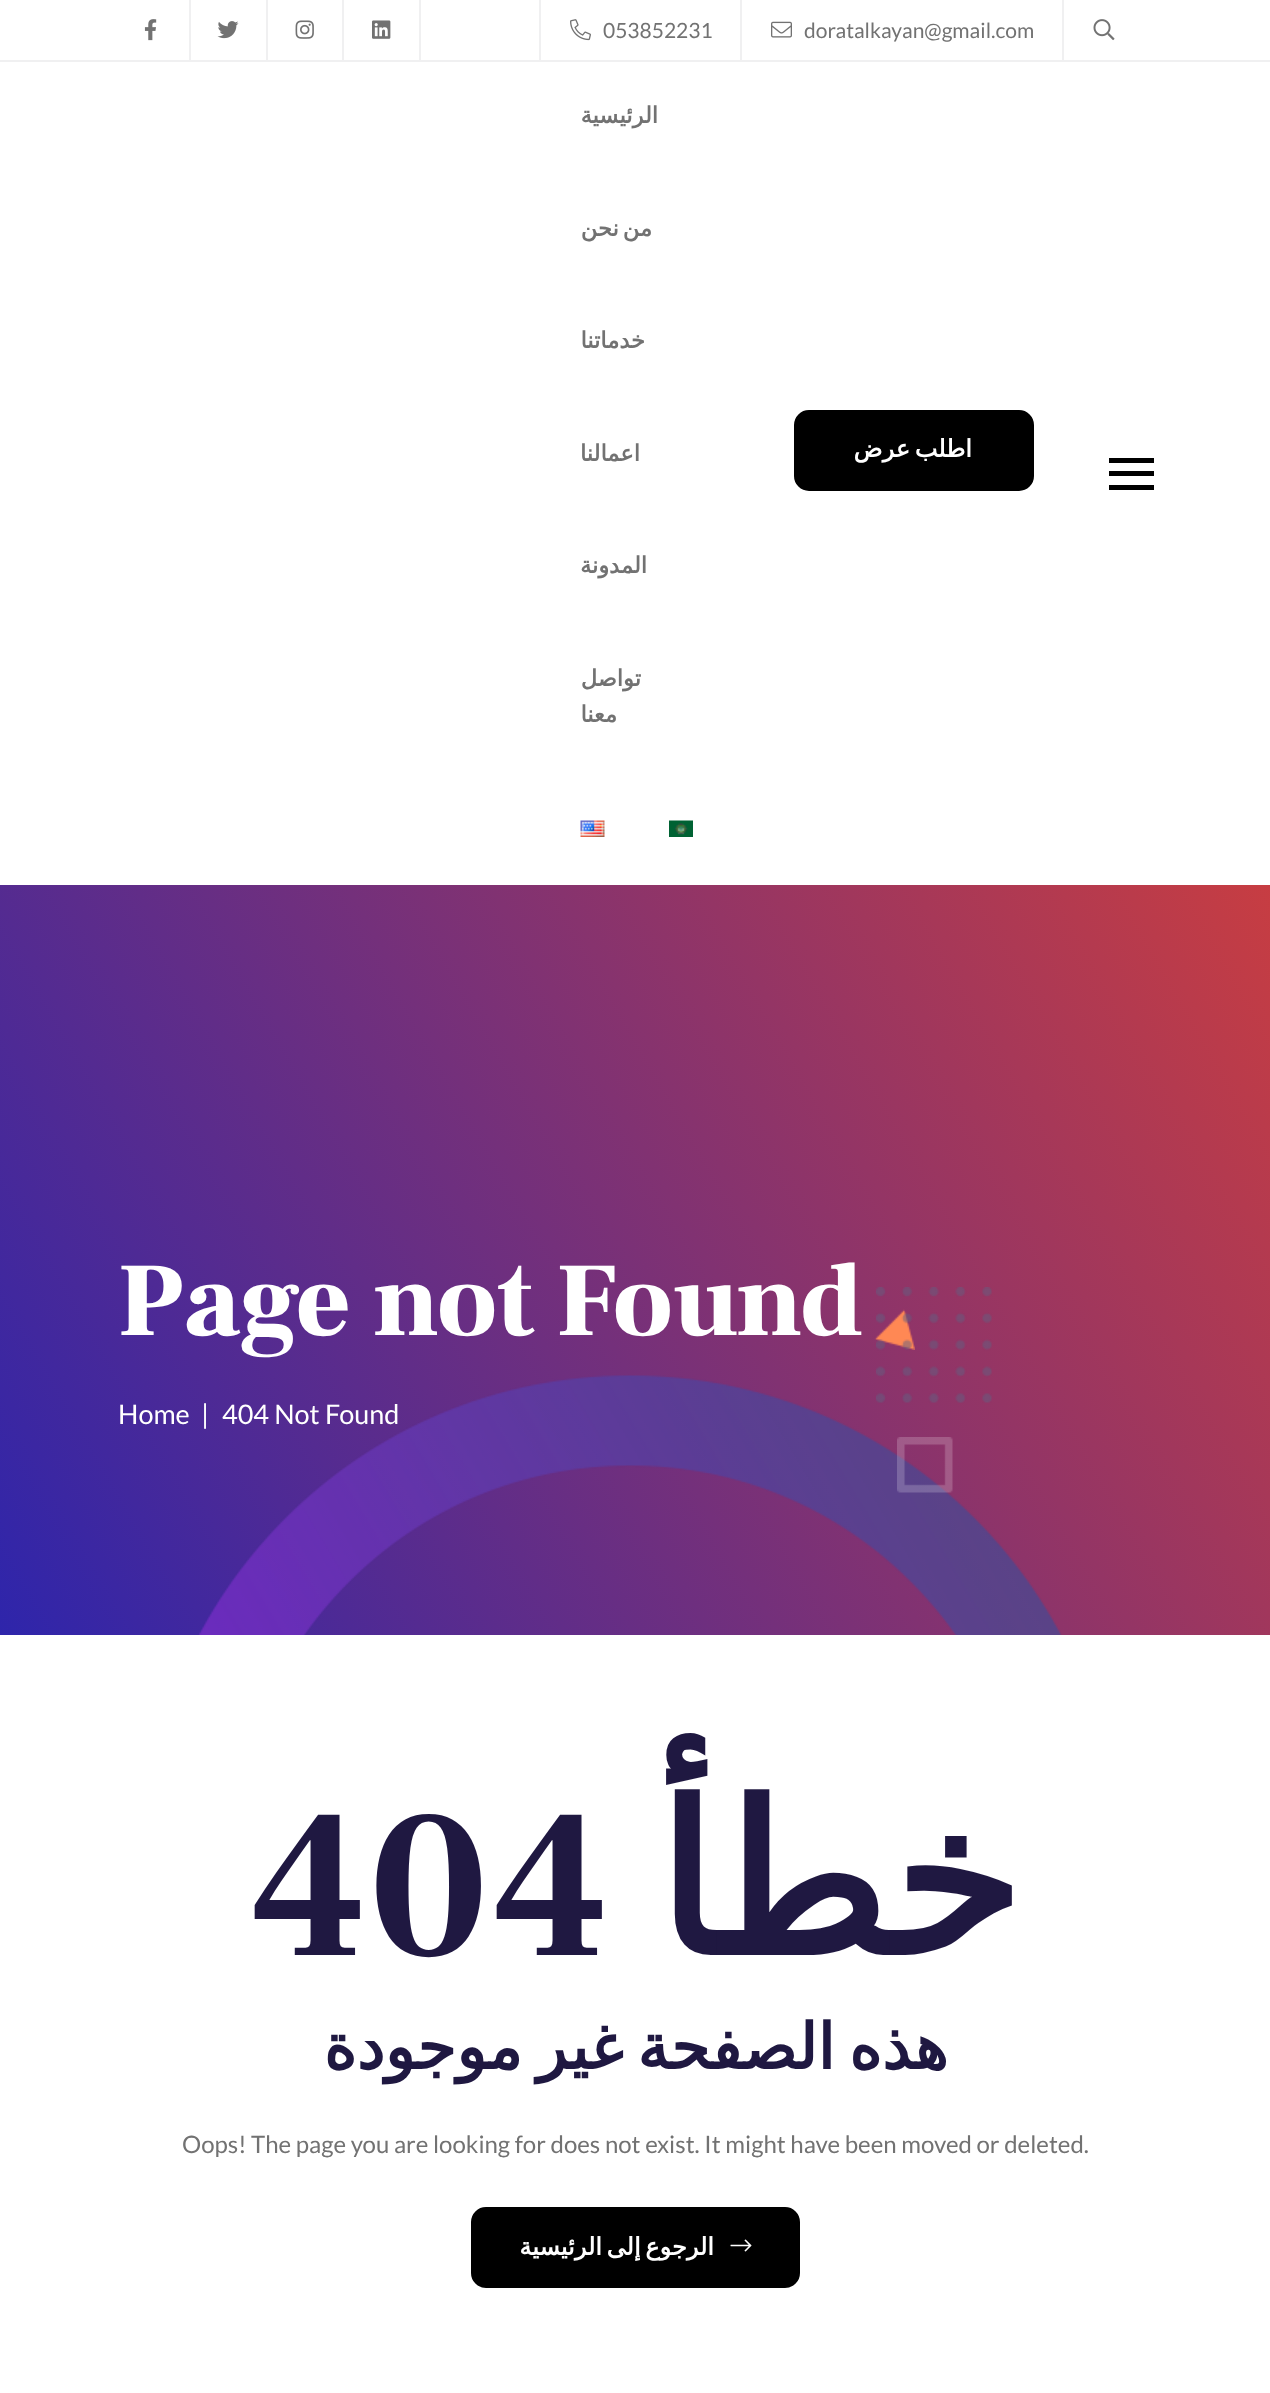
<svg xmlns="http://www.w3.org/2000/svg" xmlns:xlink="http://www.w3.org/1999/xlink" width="1270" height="2393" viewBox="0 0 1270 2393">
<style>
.cls-1{font:21px Lato;fill:#727272}
.cls-2{font:bold 22.5px DejaVu Sans;direction:rtl;fill:#727272}
.cls-3{font:bold 24px DejaVu Sans;direction:rtl;fill:#ffffff}
.cls-4{font:900 105px Frank Ruhl Libre;fill:#ffffff}
.cls-5{font:27px Lato;fill:#ffffff}
.cls-6{font:bold 210px Frank Ruhl Libre;fill:#1f1841}
.cls-7{font:bold 210px DejaVu Sans;direction:rtl;fill:#1f1841}
.cls-8{font:bold 63px DejaVu Sans;direction:rtl;fill:#1f1841}
.cls-9{font:24px Lato;fill:#727272}
</style>
<defs>
<linearGradient id="g1" gradientUnits="userSpaceOnUse" x1="-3.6" y1="1629" x2="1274" y2="891"><stop offset="0" stop-color="#2e25ab"/><stop offset="1" stop-color="#c73d42"/></linearGradient>
</defs>
<rect width="100%" height="100%" fill="#ffffff"/>
<rect fill="#f0f0f1" x="0" y="60" width="1270" height="2"/>
<rect fill="#f0f0f1" x="189" y="0" width="2" height="60"/>
<image xlink:href="image0.png" x="144" y="19" width="13" height="22"/>
<rect fill="#f0f0f1" x="266" y="0" width="2" height="60"/>
<image xlink:href="image1.png" x="217" y="21" width="22" height="18"/>
<rect fill="#f0f0f1" x="342" y="0" width="2" height="60"/>
<image xlink:href="image2.png" x="295" y="20" width="19" height="19"/>
<rect fill="#f0f0f1" x="419" y="0" width="2" height="60"/>
<image xlink:href="image3.png" x="372" y="20" width="19" height="19"/>
<rect fill="#f0f0f1" x="539" y="0" width="2" height="60"/>
<image xlink:href="image4.png" x="570" y="19" width="21" height="22"/>
<rect fill="#f0f0f1" x="740" y="0" width="2" height="60"/>
<image xlink:href="image5.png" x="771" y="21" width="21" height="17"/>
<rect fill="#f0f0f1" x="1062" y="0" width="2" height="60"/>
<image xlink:href="image6.png" x="1093" y="19" width="22" height="22"/>
<image xlink:href="image7.png" x="580" y="820" width="25" height="17"/>
<image xlink:href="image8.png" x="669" y="820" width="24" height="17"/>
<rect fill="#000000" stroke="#000000" stroke-width="3" x="795.5" y="411.5" width="237" height="78" rx="13.5"/>
<rect fill="#000000" x="1109" y="458" width="45" height="5"/>
<rect fill="#000000" x="1109" y="471" width="45" height="5"/>
<rect fill="#000000" x="1109" y="485" width="45" height="5"/>
<rect fill="url(#g1)" x="0" y="885" width="1270" height="750"/>
<image xlink:href="image10.png" x="874" y="1309" width="41" height="41"/>
<image xlink:href="image9.png" x="876" y="1287" width="116" height="116"/>
<image xlink:href="image11.png" x="198" y="1375" width="864" height="260"/>
<image xlink:href="image12.png" x="897" y="1437" width="56" height="56"/>
<rect fill="#000000" stroke="#000000" stroke-width="3" x="472.5" y="2208.5" width="326" height="78" rx="13.5"/>
<image xlink:href="image13.png" x="730" y="2239" width="22" height="13"/>
<text class="cls-1" x="603" y="38">053852231</text>
<text class="cls-1" x="804" y="38">doratalkayan@gmail.com</text>
<text class="cls-2" x="658" y="123">الرئيسية</text>
<text class="cls-2" x="652" y="236" word-spacing="-3">من نحن</text>
<text class="cls-2" x="645" y="348">خدماتنا</text>
<text class="cls-2" x="640" y="461">اعمالنا</text>
<text class="cls-2" x="647" y="573">المدونة</text>
<text class="cls-2" x="641" y="686">تواصل</text>
<text class="cls-2" x="617" y="722">معنا</text>
<text class="cls-3" x="972" y="457" word-spacing="-3">اطلب عرض</text>
<text class="cls-4" x="118" y="1335">Page not Found</text>
<text class="cls-5" x="118" y="1424">Home</text>
<text class="cls-5" x="201" y="1424">|</text>
<text class="cls-5" x="222" y="1424">404 Not Found</text>
<text class="cls-6" x="249" y="1955">404</text>
<text class="cls-7" x="1021" y="1955">خطأ</text>
<text class="cls-8" x="948" y="2069" word-spacing="-6">هذه الصفحة غير موجودة</text>
<text class="cls-9" x="182" y="2153">Oops! The page you are looking for does not exist. It might have been moved or deleted.</text>
<text class="cls-3" x="714" y="2255" word-spacing="-3">الرجوع إلى الرئيسية</text>
</svg>
